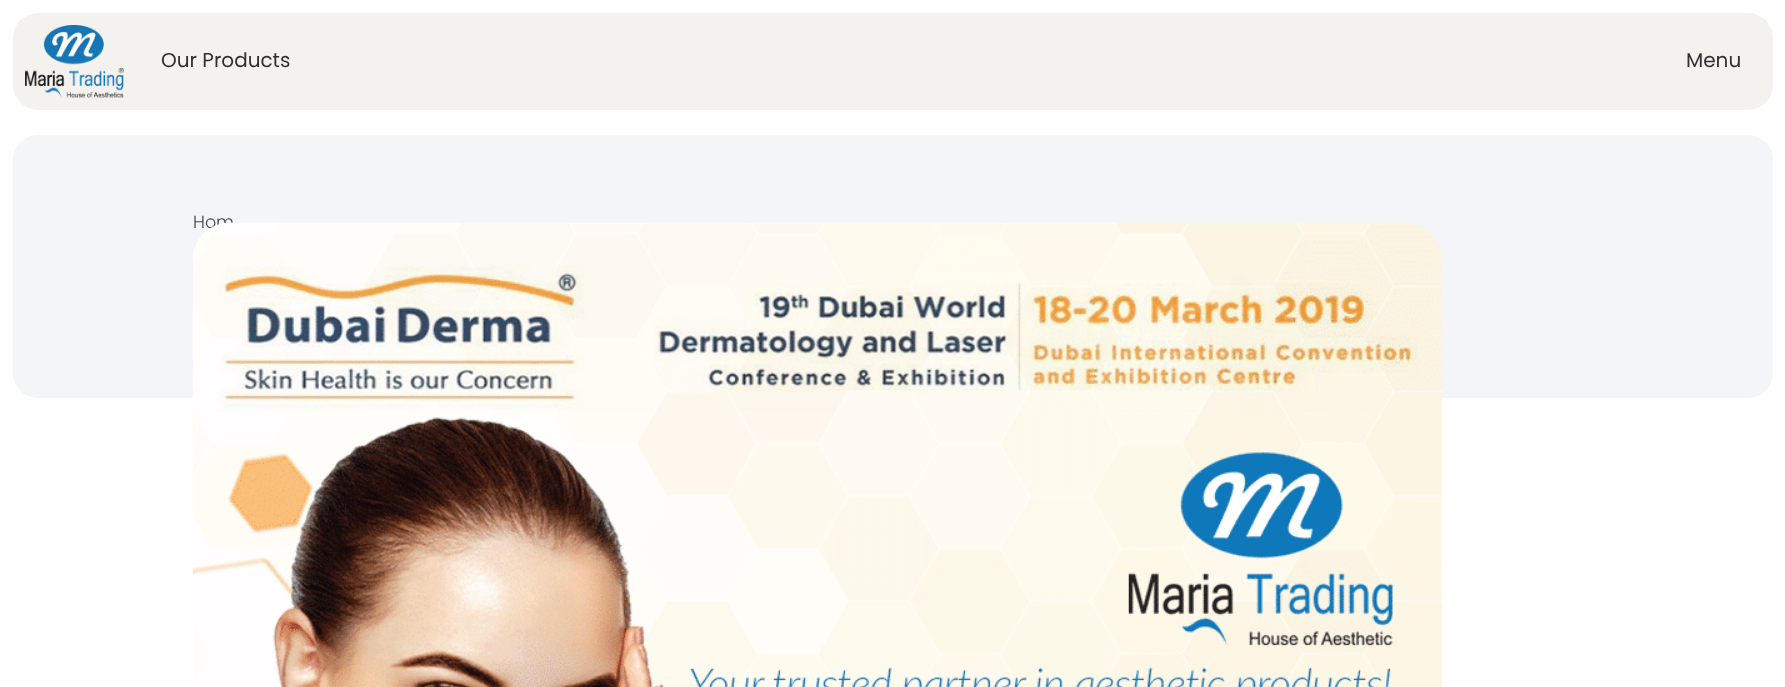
async function draw(canvas) {
  canvas.width = 1785
  canvas.height = 687
  const ctx = canvas.getContext('2d')
  ctx.miterLimit = 4
  ctx.fontKerning = 'normal'
  async function loadImage(src) {
    const img = new Image()
    img.src = src
    await img.decode()
    return img
  }

  ctx.fillStyle = '#fff'
  ctx.fillRect(0, 0, 1785, 687)
  ctx.fillStyle = '#f4f2ef'
  ctx.beginPath()
  ctx.roundRect(13, 13, 1760, 97, 25)
  ctx.fill()
  ctx.drawImage(await loadImage('image0.png'), 25, 25, 99, 73)
  ctx.font = '20px Poppins'
  ctx.fillStyle = '#313131'
  ctx.fillText('Our Products', 161, 67)
  ctx.fillText('Menu', 1686, 67)
  ctx.fillStyle = '#f4f5f8'
  ctx.beginPath()
  ctx.roundRect(13, 135, 1760, 263, 25)
  ctx.fill()
  ctx.font = '300 17.5px Poppins'
  ctx.fillStyle = '#444'
  ctx.fillText('Hom', 193, 228)
  ctx.drawImage(await loadImage('image1.png'), 192, 222, 1251, 465)
}

draw(document.querySelector('canvas'))
